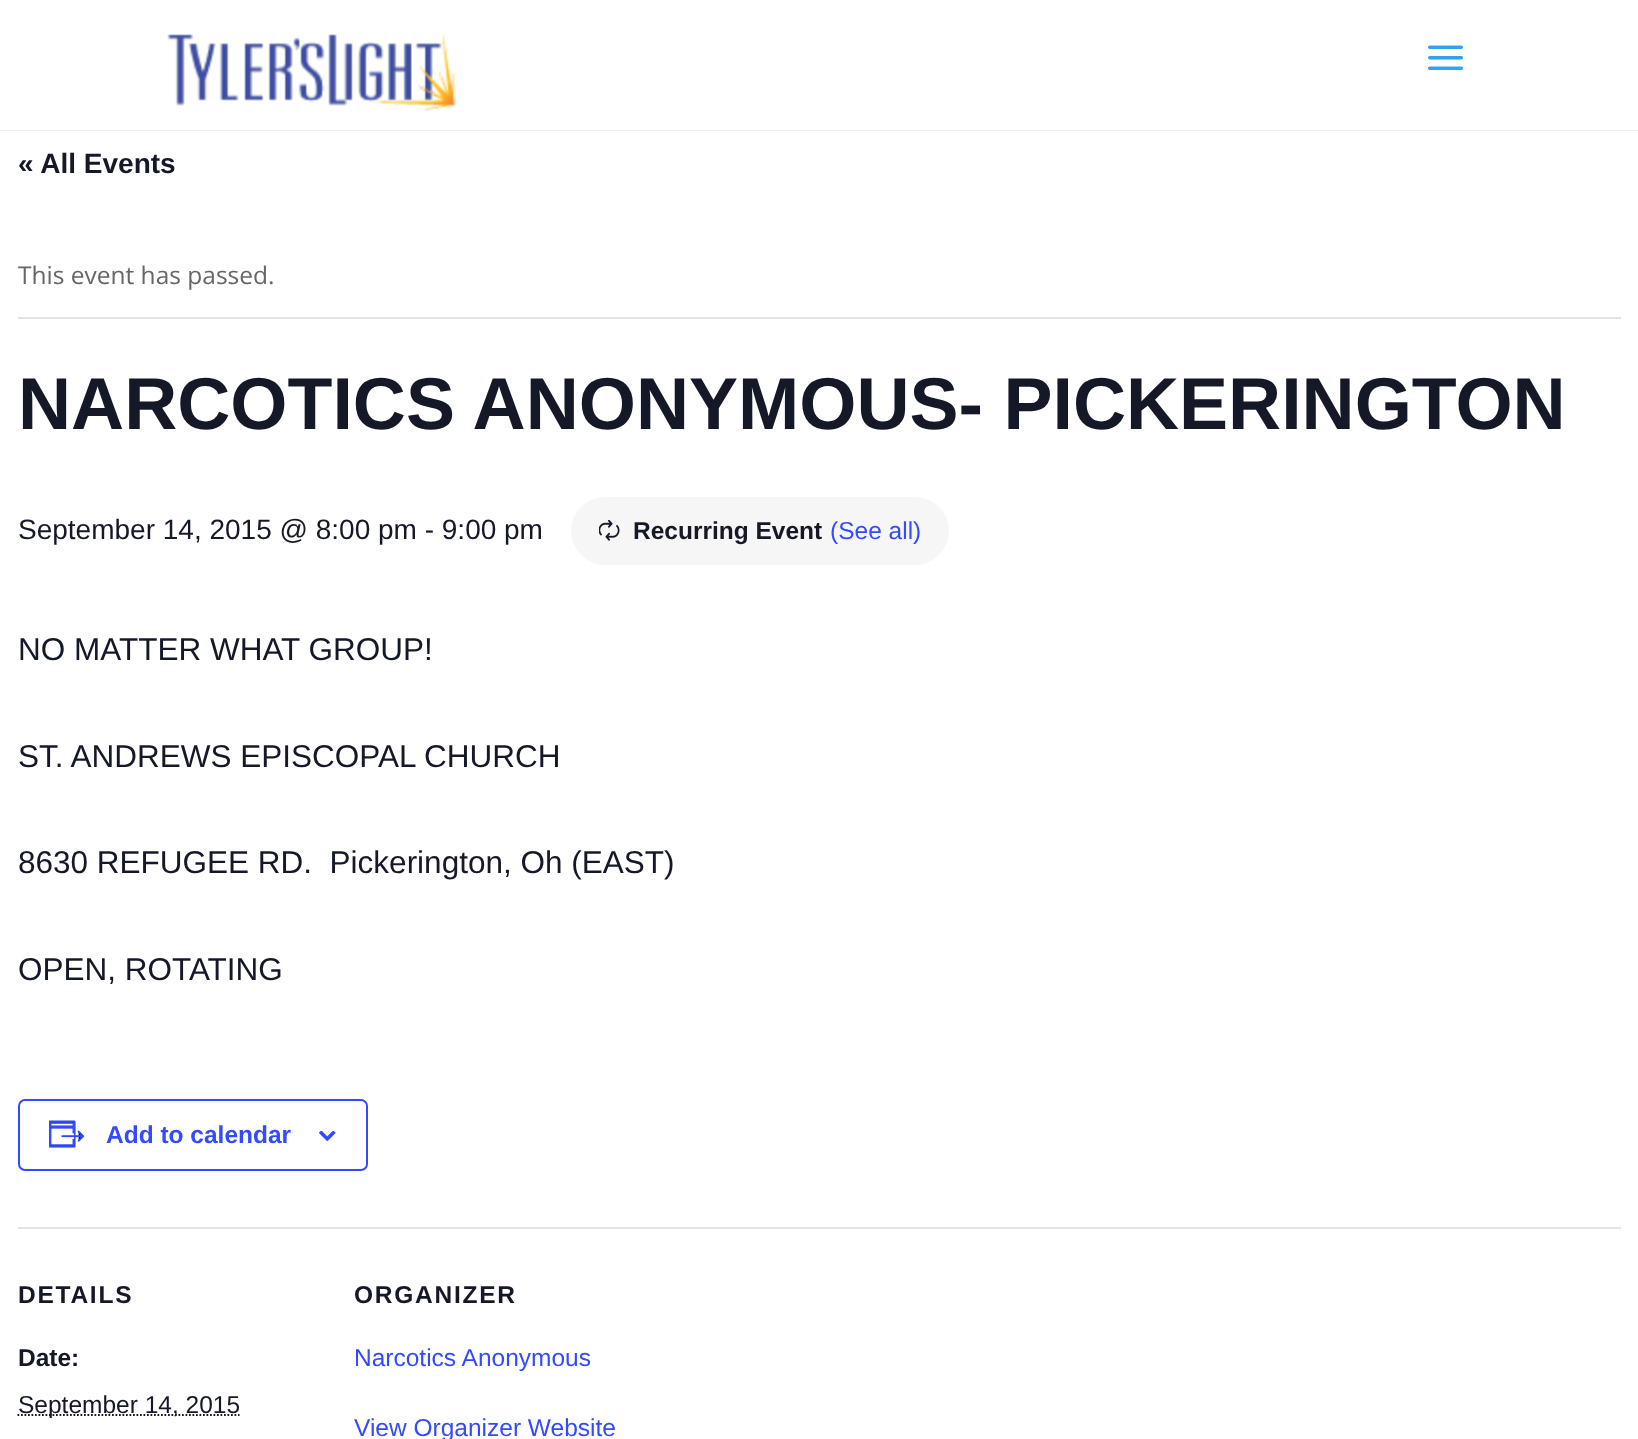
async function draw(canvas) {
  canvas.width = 1638
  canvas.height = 1439
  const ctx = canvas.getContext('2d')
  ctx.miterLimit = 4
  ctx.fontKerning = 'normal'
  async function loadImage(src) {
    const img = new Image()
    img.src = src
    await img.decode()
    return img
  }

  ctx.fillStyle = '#fff'
  ctx.fillRect(0, 0, 1638, 1439)
  ctx.fillStyle = '#f0f0f0'
  ctx.fillRect(0, 130, 1638, 1)
  ctx.drawImage(await loadImage('image0.png'), 167, 33, 289, 78)
  ctx.drawImage(await loadImage('image1.png'), 1428, 45, 35, 25)
  ctx.font = 'bold 28px Liberation Sans'
  ctx.fillStyle = '#141827'
  ctx.fillText('« All Events', 18, 173)
  ctx.fillStyle = '#e4e4e4'
  ctx.fillRect(18, 317, 1603, 2)
  ctx.font = '24.5px Open Sans'
  ctx.fillStyle = '#666'
  ctx.fillText('This event has passed.', 18, 284)
  ctx.font = 'bold 73.5px Liberation Sans'
  ctx.fillStyle = '#141827'
  ctx.fillText('NARCOTICS ANONYMOUS- PICKERINGTON', 18, 429)
  ctx.font = '28px Liberation Sans'
  ctx.fillText('September 14, 2015 @ 8:00 pm - 9:00 pm', 18, 539)
  ctx.fillStyle = '#f7f6f6'
  ctx.beginPath()
  ctx.roundRect(571, 497, 378, 68, 34)
  ctx.fill()
  ctx.drawImage(await loadImage('image2.png'), 599, 520, 21, 21)
  ctx.font = 'bold 24.5px Liberation Sans'
  ctx.fillStyle = '#141827'
  ctx.fillText('Recurring Event', 633, 539)
  ctx.font = '24.5px Liberation Sans'
  ctx.fillStyle = '#334aff'
  ctx.fillText('(See all)', 830, 539)
  ctx.font = '31.5px Liberation Sans'
  ctx.fillStyle = '#141827'
  ctx.fillText('NO MATTER WHAT GROUP!', 18, 660)
  ctx.fillText('ST. ANDREWS EPISCOPAL CHURCH', 18, 767)
  ctx.fillText('8630 REFUGEE RD.  Pickerington, Oh (EAST)', 18, 873)
  ctx.fillText('OPEN, ROTATING', 18, 980)
  ctx.beginPath()
  ctx.roundRect(19, 1100, 348, 70, 6)
  ctx.strokeStyle = '#334aff'
  ctx.lineWidth = 2
  ctx.stroke()
  ctx.drawImage(await loadImage('image3.png'), 49, 1120, 36, 28)
  ctx.font = 'bold 24.5px Liberation Sans'
  ctx.fillStyle = '#334aff'
  ctx.fillText('Add to calendar', 106, 1143)
  ctx.drawImage(await loadImage('image4.png'), 319, 1131, 17, 10)
  ctx.fillStyle = '#e4e4e4'
  ctx.fillRect(18, 1227, 1603, 2)
  ctx.letterSpacing = '1.75px'
  ctx.fillStyle = '#141827'
  ctx.fillText('DETAILS', 18, 1303)
  ctx.letterSpacing = '0px'
  ctx.fillText('Date:', 18, 1366)
  ctx.beginPath()
  ctx.moveTo(17.5, 1415)
  ctx.lineTo(239.5, 1415)
  ctx.strokeStyle = '#141827'
  ctx.lineWidth = 1.8
  ctx.setLineDash([1.75, 1.75])
  ctx.stroke()
  ctx.font = '24.5px Liberation Sans'
  ctx.fillText('September 14, 2015', 18, 1413)
  ctx.letterSpacing = '1.75px'
  ctx.font = 'bold 24.5px Liberation Sans'
  ctx.fillText('ORGANIZER', 354, 1303)
  ctx.letterSpacing = '0px'
  ctx.font = '24.5px Liberation Sans'
  ctx.fillStyle = '#334aff'
  ctx.fillText('Narcotics Anonymous', 354, 1366)
  ctx.fillText('View Organizer Website', 354, 1436)
}

draw(document.querySelector('canvas'))
